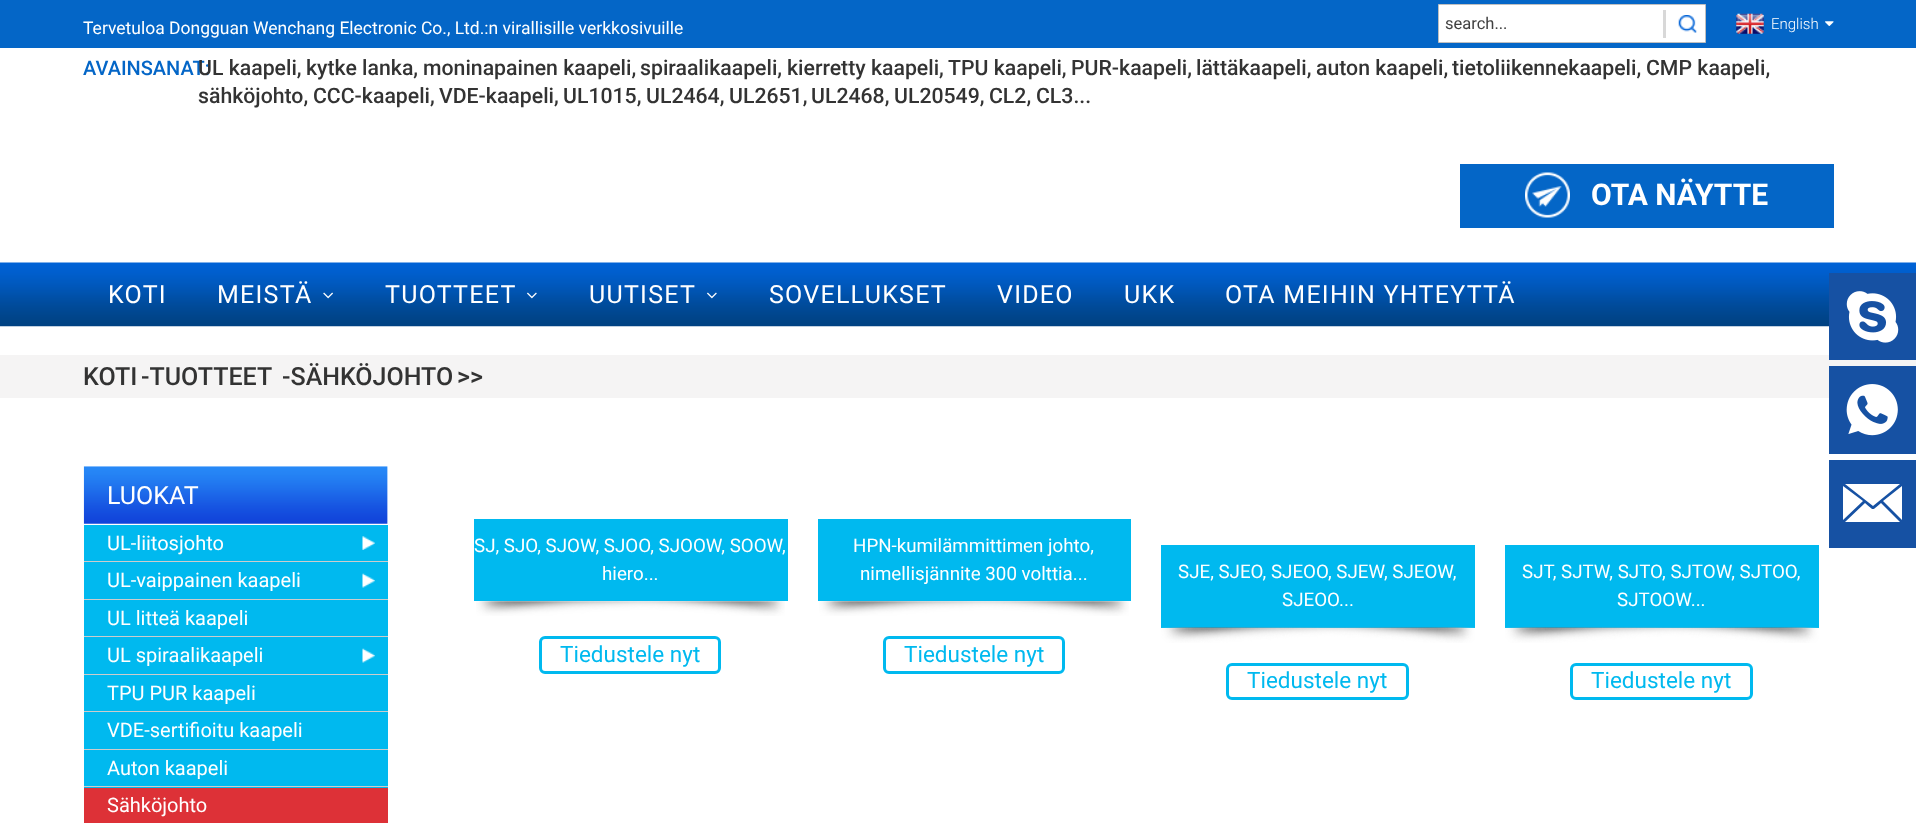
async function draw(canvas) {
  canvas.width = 1916
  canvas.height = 823
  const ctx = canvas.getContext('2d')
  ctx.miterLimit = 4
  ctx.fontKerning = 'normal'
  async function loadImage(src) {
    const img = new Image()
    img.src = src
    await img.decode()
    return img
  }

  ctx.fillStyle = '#fff'
  ctx.fillRect(0, 0, 1916, 823)
  ctx.fillStyle = '#0466c7'
  ctx.fillRect(0, 0, 1916, 48)
  ctx.font = '17.5px Roboto'
  ctx.fillStyle = '#fff'
  ctx.fillText('Tervetuloa Dongguan Wenchang Electronic Co., Ltd.:n virallisille verkkosivuille', 83, 34)
  ctx.beginPath()
  ctx.rect(1438.5, 4.5, 267, 38)
  ctx.fill()
  ctx.strokeStyle = '#bfbfbf'
  ctx.stroke()
  ctx.font = '16.5px Roboto'
  ctx.fillStyle = '#414141'
  ctx.fillText('search...', 1445, 29)
  ctx.drawImage(await loadImage('image0.png'), 1678, 15, 19, 18)
  ctx.fillStyle = '#d8d8d8'
  ctx.fillRect(1663, 10, 3, 28)
  ctx.drawImage(await loadImage('image1.png'), 1736, 13, 28, 21)
  ctx.font = '300 15px Roboto'
  ctx.fillStyle = '#fff'
  ctx.fillText('English', 1771, 29)
  ctx.drawImage(await loadImage('image2.png'), 1825, 21, 9, 5)
  ctx.font = '500 20px Roboto'
  ctx.fillStyle = '#0466c7'
  ctx.fillText('AVAINSANAT:', 83, 75)
  ctx.font = '500 21.25px Roboto'
  ctx.fillStyle = '#333'
  ctx.fillText('UL kaapeli,', 198, 75)
  ctx.fillText('kytke lanka,', 306, 75)
  ctx.fillText('moninapainen kaapeli,', 423, 75)
  ctx.fillText('spiraalikaapeli,', 640, 75)
  ctx.fillText('kierretty kaapeli,', 787, 75)
  ctx.fillText('TPU kaapeli,', 948, 75)
  ctx.fillText('PUR-kaapeli,', 1071, 75)
  ctx.fillText('lättäkaapeli,', 1196, 75)
  ctx.fillText('auton kaapeli,', 1316, 75)
  ctx.fillText('tietoliikennekaapeli,', 1452, 75)
  ctx.fillText('CMP kaapeli,', 1646, 75)
  ctx.fillText('sähköjohto,', 198, 103)
  ctx.fillText('CCC-kaapeli,', 313, 103)
  ctx.fillText('VDE-kaapeli,', 439, 103)
  ctx.fillText('UL1015,', 563, 103)
  ctx.fillText('UL2464,', 646, 103)
  ctx.fillText('UL2651,', 729, 103)
  ctx.fillText('UL2468,', 811, 103)
  ctx.fillText('UL20549,', 894, 103)
  ctx.fillText('CL2,', 989, 103)
  ctx.fillText('CL3...', 1036, 103)
  ctx.fillStyle = '#0466c7'
  ctx.fillRect(1460, 164, 374, 64)
  ctx.drawImage(await loadImage('image3.png'), 1525, 172, 45, 46)
  ctx.font = 'bold 30px Roboto'
  ctx.fillStyle = '#fff'
  ctx.fillText('OTA NÄYTTE', 1591, 205)
  ctx.drawImage(await loadImage('image4.png'), 0, 262, 1916, 65)
  ctx.letterSpacing = '1.25px'
  ctx.font = '25px Roboto'
  ctx.fillText('KOTI', 108, 303)
  ctx.fillText('MEISTÄ', 217, 303)
  ctx.drawImage(await loadImage('image5.png'), 323, 292, 10, 7)
  ctx.fillText('TUOTTEET', 385, 303)
  ctx.drawImage(await loadImage('image6.png'), 527, 292, 10, 7)
  ctx.fillText('UUTISET', 589, 303)
  ctx.drawImage(await loadImage('image6.png'), 707, 292, 10, 7)
  ctx.fillText('SOVELLUKSET', 769, 303)
  ctx.fillText('VIDEO', 997, 303)
  ctx.fillText('UKK', 1124, 303)
  ctx.fillText('OTA MEIHIN YHTEYTTÄ', 1225, 303)
  ctx.fillStyle = '#f5f4f4'
  ctx.fillRect(0, 355, 1916, 43)
  ctx.letterSpacing = '0px'
  ctx.font = '500 25px Roboto'
  ctx.fillStyle = '#333'
  ctx.fillText('KOTI', 83, 385)
  ctx.fillText('-TUOTTEET', 141, 385)
  ctx.fillText('-SÄHKÖJOHTO', 282, 385)
  ctx.fillText('>>', 457, 385)
  ctx.drawImage(await loadImage('image7.png'), 83, 466, 305, 58)
  ctx.font = '25px Roboto'
  ctx.fillStyle = '#fff'
  ctx.fillText('LUOKAT', 107, 504)
  ctx.fillStyle = '#00b9ef'
  ctx.fillRect(84, 525, 304, 74)
  ctx.fillStyle = '#ccc'
  ctx.fillRect(84, 561, 304, 1)
  ctx.font = '20px Roboto'
  ctx.fillStyle = '#fff'
  ctx.fillText('UL-liitosjohto', 107, 550)
  ctx.drawImage(await loadImage('image8.png'), 362, 536, 13, 14)
  ctx.fillStyle = '#ccc'
  ctx.fillRect(84, 599, 304, 1)
  ctx.fillStyle = '#fff'
  ctx.fillText('UL-vaippainen kaapeli', 107, 587)
  ctx.drawImage(await loadImage('image9.png'), 362, 573, 13, 15)
  ctx.fillStyle = '#00b9ef'
  ctx.fillRect(84, 600, 304, 74)
  ctx.fillStyle = '#ccc'
  ctx.fillRect(84, 636, 304, 1)
  ctx.fillStyle = '#fff'
  ctx.fillText('UL litteä kaapeli', 107, 625)
  ctx.fillStyle = '#ccc'
  ctx.fillRect(84, 674, 304, 1)
  ctx.fillStyle = '#fff'
  ctx.fillText('UL spiraalikaapeli', 107, 662)
  ctx.drawImage(await loadImage('image10.png'), 362, 648, 13, 15)
  ctx.fillStyle = '#00b9ef'
  ctx.fillRect(84, 675, 304, 74)
  ctx.fillStyle = '#ccc'
  ctx.fillRect(84, 711, 304, 1)
  ctx.fillStyle = '#fff'
  ctx.fillText('TPU PUR kaapeli', 107, 700)
  ctx.fillStyle = '#ccc'
  ctx.fillRect(84, 749, 304, 1)
  ctx.fillStyle = '#fff'
  ctx.fillText('VDE-sertifioitu kaapeli', 107, 737)
  ctx.fillStyle = '#00b9ef'
  ctx.fillRect(84, 750, 304, 38)
  ctx.fillStyle = '#ccc'
  ctx.fillRect(84, 786, 304, 1)
  ctx.fillStyle = '#fff'
  ctx.fillText('Auton kaapeli', 107, 775)
  ctx.fillStyle = '#dd3137'
  ctx.fillRect(84, 788, 304, 35)
  ctx.fillStyle = '#fff'
  ctx.fillText('Sähköjohto', 107, 812)
  ctx.fillStyle = '#00b9ef'
  ctx.fillRect(474, 519, 314, 82)
  ctx.font = '18.75px Roboto'
  ctx.fillStyle = '#fff'
  ctx.fillText('SJ, SJO, SJOW, SJOO, SJOOW, SOOW,', 474, 552)
  ctx.fillText('hiero...', 602, 580)
  ctx.drawImage(await loadImage('image11.png'), 476, 601, 309, 15)
  ctx.beginPath()
  ctx.roundRect(540.5, 637.5, 179, 35, 4.5)
  ctx.strokeStyle = '#00b9ef'
  ctx.lineWidth = 3
  ctx.stroke()
  ctx.font = '22.5px Roboto'
  ctx.fillStyle = '#00b9ef'
  ctx.fillText('Tiedustele nyt', 560, 662)
  ctx.fillRect(818, 519, 313, 82)
  ctx.font = '18.75px Roboto'
  ctx.fillStyle = '#fff'
  ctx.fillText('HPN-kumilämmittimen johto,', 853, 552)
  ctx.fillText('nimellisjännite 300 volttia...', 860, 580)
  ctx.drawImage(await loadImage('image12.png'), 819, 601, 310, 15)
  ctx.beginPath()
  ctx.roundRect(884.5, 637.5, 179, 35, 4.5)
  ctx.stroke()
  ctx.font = '22.5px Roboto'
  ctx.fillStyle = '#00b9ef'
  ctx.fillText('Tiedustele nyt', 904, 662)
  ctx.fillRect(1161, 545, 314, 83)
  ctx.font = '18.75px Roboto'
  ctx.fillStyle = '#fff'
  ctx.fillText('SJE, SJEO, SJEOO, SJEW, SJEOW,', 1178, 578)
  ctx.fillText('SJEOO...', 1282, 606)
  ctx.drawImage(await loadImage('image13.png'), 1161, 627, 314, 16)
  ctx.beginPath()
  ctx.roundRect(1227.5, 664.5, 180, 34, 4.5)
  ctx.stroke()
  ctx.font = '22.5px Roboto'
  ctx.fillStyle = '#00b9ef'
  ctx.fillText('Tiedustele nyt', 1247, 688)
  ctx.fillRect(1505, 545, 314, 83)
  ctx.font = '18.75px Roboto'
  ctx.fillStyle = '#fff'
  ctx.fillText('SJT, SJTW, SJTO, SJTOW, SJTOO,', 1522, 578)
  ctx.fillText('SJTOOW...', 1617, 606)
  ctx.drawImage(await loadImage('image14.png'), 1505, 627, 314, 16)
  ctx.beginPath()
  ctx.roundRect(1571.5, 664.5, 180, 34, 4.5)
  ctx.stroke()
  ctx.font = '22.5px Roboto'
  ctx.fillStyle = '#00b9ef'
  ctx.fillText('Tiedustele nyt', 1591, 688)
  ctx.fillStyle = '#1651a3'
  ctx.fillRect(1829, 273, 87, 87)
  ctx.drawImage(await loadImage('image15.png'), 1846, 291, 53, 52)
  ctx.fillRect(1829, 366, 87, 88)
  ctx.drawImage(await loadImage('image16.png'), 1846, 384, 52, 52)
  ctx.fillRect(1829, 460, 87, 88)
  ctx.fillStyle = '#fff'
  ctx.beginPath()
  ctx.moveTo(1873, 506)
  ctx.lineTo(1845, 484)
  ctx.lineTo(1900, 484)
  ctx.closePath()
  ctx.moveTo(1902, 520)
  ctx.lineTo(1883, 501)
  ctx.lineTo(1902, 486)
  ctx.closePath()
  ctx.moveTo(1843, 520)
  ctx.lineTo(1843, 486)
  ctx.lineTo(1863, 501)
  ctx.closePath()
  ctx.moveTo(1900, 522)
  ctx.lineTo(1845, 522)
  ctx.lineTo(1865, 503)
  ctx.bezierCurveTo(1875, 511, 1871, 511, 1881, 503)
  ctx.closePath()
  ctx.fill()
}

draw(document.querySelector('canvas'))
